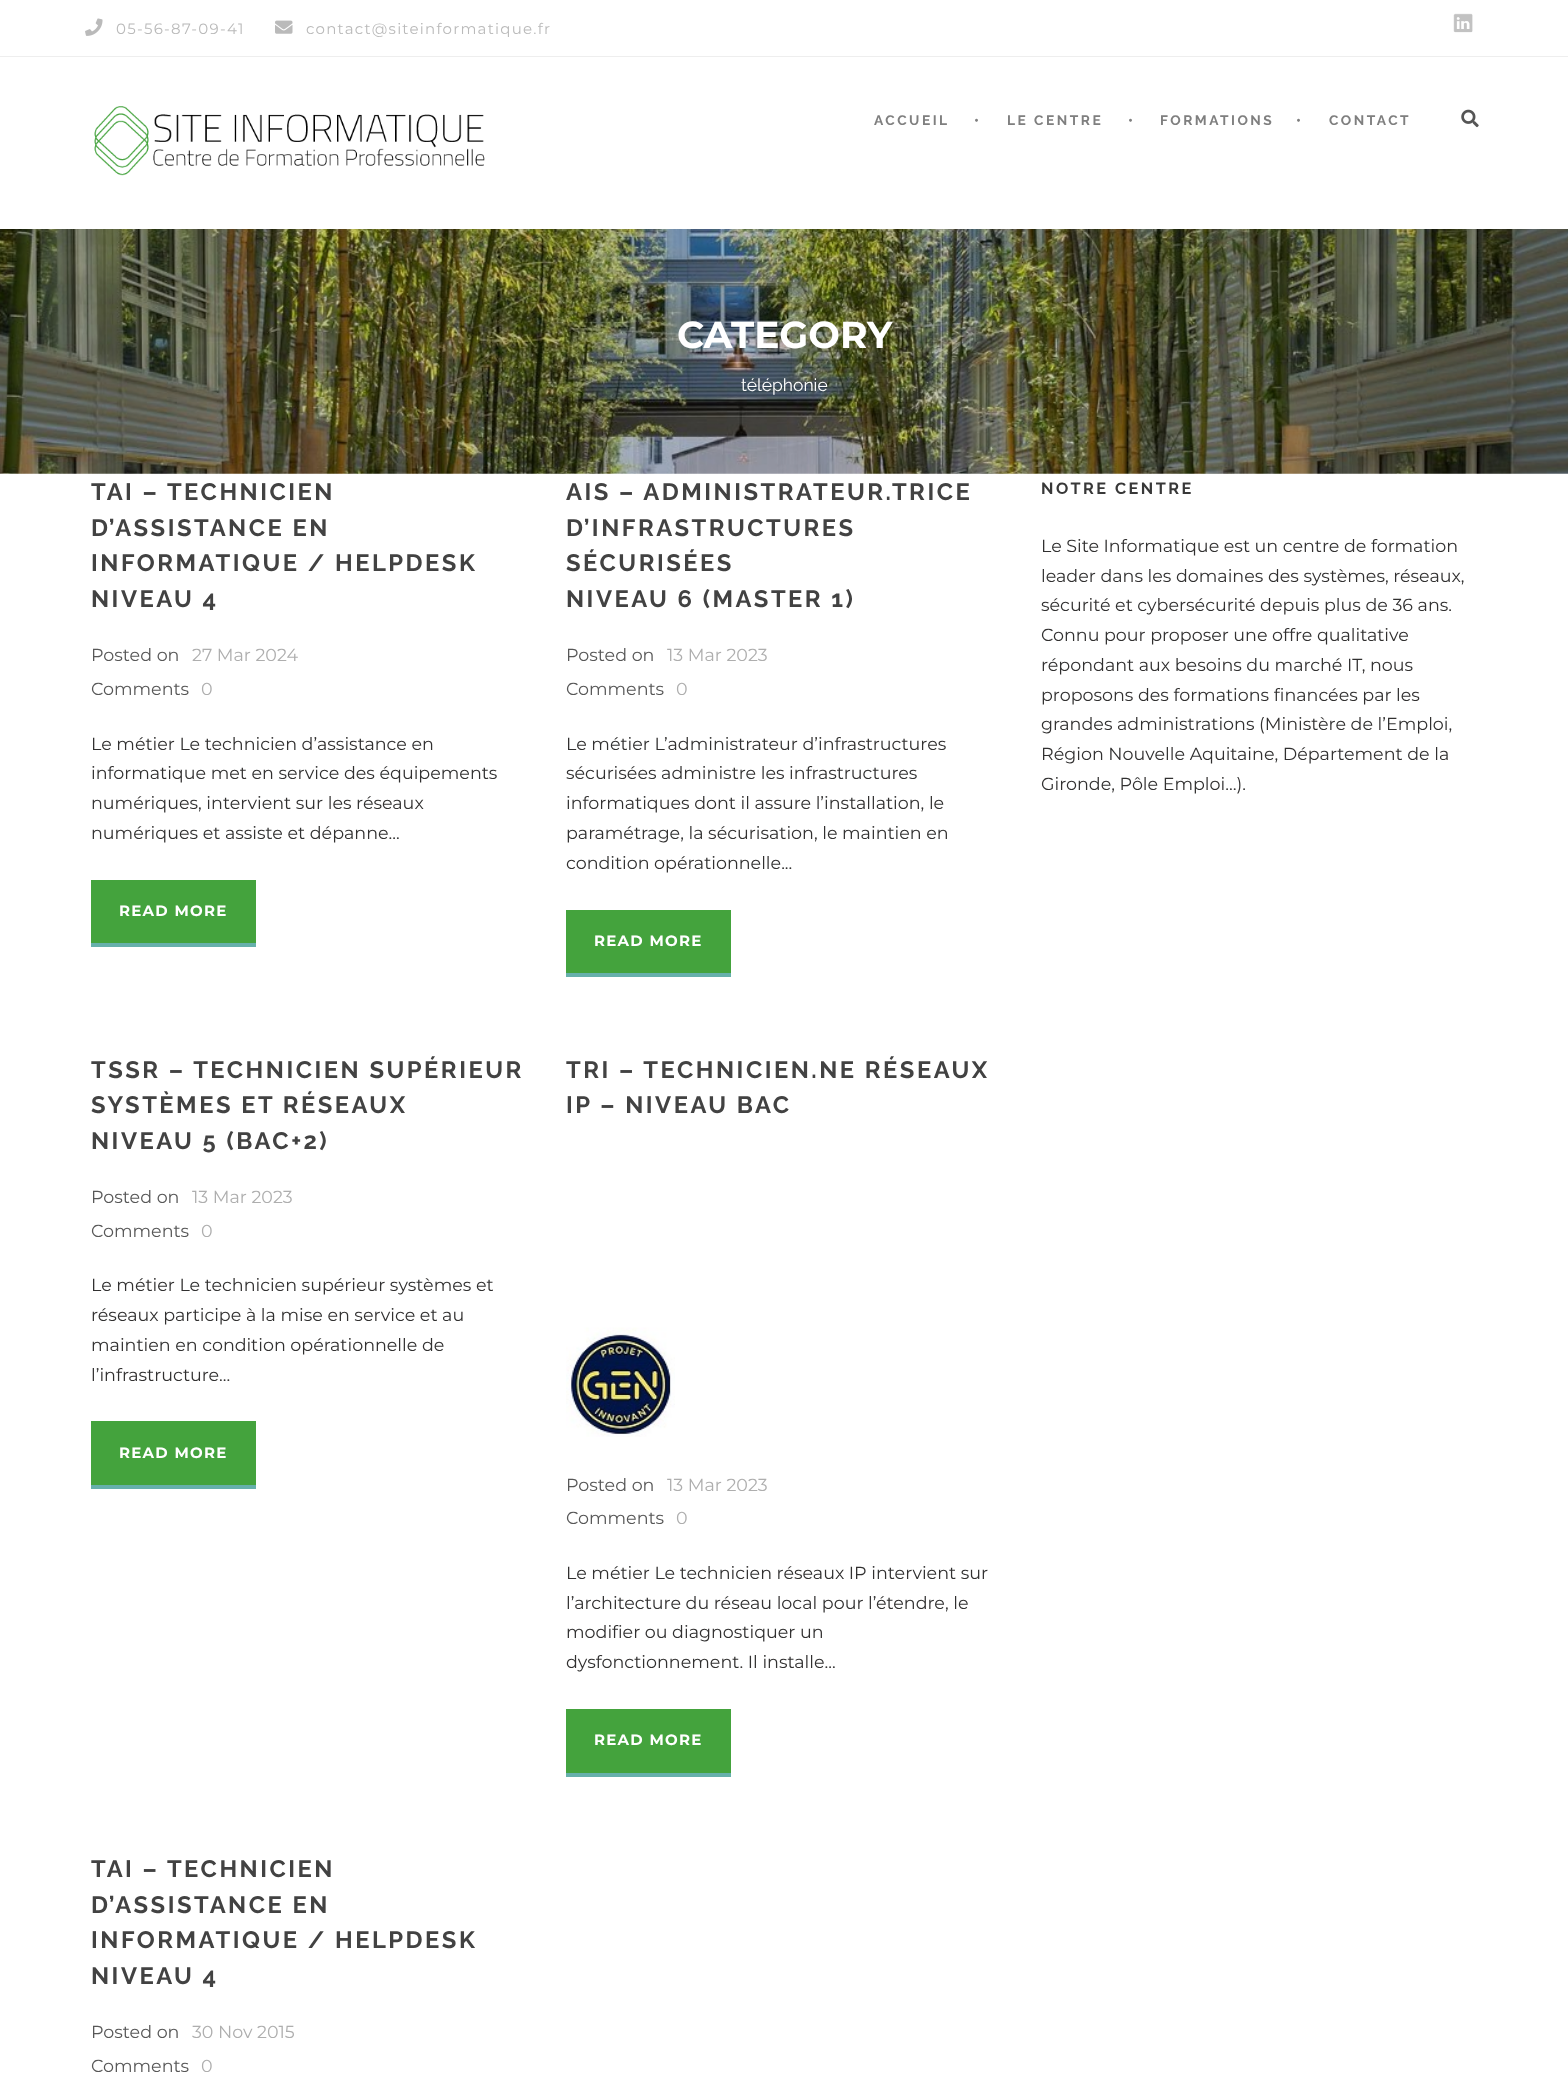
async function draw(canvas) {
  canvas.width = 1568
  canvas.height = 2075
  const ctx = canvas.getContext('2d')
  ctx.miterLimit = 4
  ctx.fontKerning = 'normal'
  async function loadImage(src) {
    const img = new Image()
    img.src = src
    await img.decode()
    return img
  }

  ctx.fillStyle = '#fff'
  ctx.fillRect(0, 0, 1568, 2075)
  ctx.fillStyle = '#eee'
  ctx.fillRect(0, 56, 1568, 1)
  ctx.drawImage(await loadImage('image0.png'), 85, 18, 18, 18)
  ctx.letterSpacing = '1.25px'
  ctx.font = '15px Montserrat'
  ctx.fillStyle = '#bababa'
  ctx.fillText('05-56-87-09-41', 116, 34)
  ctx.drawImage(await loadImage('image1.png'), 275, 20, 18, 14)
  ctx.fillText('contact@siteinformatique.fr', 306, 34)
  ctx.drawImage(await loadImage('image2.png'), 1453, 13, 20, 20)
  ctx.drawImage(await loadImage('image3.png'), 94, 106, 391, 70)
  ctx.letterSpacing = '2.5px'
  ctx.font = 'bold 13.75px Raleway'
  ctx.fillStyle = '#7f7f7f'
  ctx.fillText('ACCUEIL', 874, 125)
  ctx.fillText('•', 974, 125)
  ctx.fillText('LE CENTRE', 1007, 125)
  ctx.fillText('•', 1128, 125)
  ctx.fillText('FORMATIONS', 1160, 125)
  ctx.fillText('•', 1296, 125)
  ctx.fillText('CONTACT', 1329, 125)
  ctx.drawImage(await loadImage('image4.png'), 1461, 109, 18, 19)
  ctx.drawImage(await loadImage('image5.png'), 0, 229, 1568, 245)
  ctx.letterSpacing = '0px'
  ctx.font = 'bold 37.5px Montserrat'
  ctx.fillStyle = '#fff'
  ctx.fillText('CATEGORY', 677, 348)
  ctx.font = '17.5px Raleway'
  ctx.fillText('téléphonie', 741, 391)
  ctx.letterSpacing = '2.5px'
  ctx.font = 'bold 23.75px Raleway'
  ctx.fillStyle = '#424242'
  ctx.fillText('TAI – TECHNICIEN', 91, 500)
  ctx.fillText('D’ASSISTANCE EN', 91, 536)
  ctx.fillText('INFORMATIQUE / HELPDESK', 91, 571)
  ctx.fillText('NIVEAU 4', 91, 607)
  ctx.letterSpacing = '0px'
  ctx.font = '17.5px Montserrat'
  ctx.fillStyle = '#575757'
  ctx.fillText('Posted on', 91, 661)
  ctx.fillStyle = '#aeaeae'
  ctx.fillText('27 Mar 2024', 192, 661)
  ctx.fillStyle = '#575757'
  ctx.fillText('Comments', 91, 695)
  ctx.fillStyle = '#aeaeae'
  ctx.fillText('0', 201, 695)
  ctx.fillStyle = '#313030'
  ctx.fillText('Le métier Le technicien d’assistance en', 91, 750)
  ctx.fillText('informatique met en service des équipements', 91, 779)
  ctx.fillText('numériques, intervient sur les réseaux', 91, 809)
  ctx.fillText('numériques et assiste et dépanne...', 91, 839)
  ctx.fillStyle = '#44a33d'
  ctx.fillRect(91, 880, 165, 63)
  ctx.fillStyle = '#66b0ab'
  ctx.fillRect(91, 943, 165, 4)
  ctx.letterSpacing = '1.25px'
  ctx.font = 'bold 15px Montserrat'
  ctx.fillStyle = '#fff'
  ctx.fillText('READ MORE', 119, 916)
  ctx.letterSpacing = '2.5px'
  ctx.font = 'bold 23.75px Raleway'
  ctx.fillStyle = '#424242'
  ctx.fillText('AIS – ADMINISTRATEUR.TRICE', 566, 500)
  ctx.fillText('D’INFRASTRUCTURES', 566, 536)
  ctx.fillText('SÉCURISÉES', 566, 571)
  ctx.fillText('NIVEAU 6 (MASTER 1)', 566, 607)
  ctx.letterSpacing = '0px'
  ctx.font = '17.5px Montserrat'
  ctx.fillStyle = '#575757'
  ctx.fillText('Posted on', 566, 661)
  ctx.fillStyle = '#aeaeae'
  ctx.fillText('13 Mar 2023', 667, 661)
  ctx.fillStyle = '#575757'
  ctx.fillText('Comments', 566, 695)
  ctx.fillStyle = '#aeaeae'
  ctx.fillText('0', 676, 695)
  ctx.fillStyle = '#313030'
  ctx.fillText('Le métier L’administrateur d’infrastructures', 566, 750)
  ctx.fillText('sécurisées administre les infrastructures', 566, 779)
  ctx.fillText('informatiques dont il assure l’installation, le', 566, 809)
  ctx.fillText('paramétrage, la sécurisation, le maintien en', 566, 839)
  ctx.fillText('condition opérationnelle...', 566, 869)
  ctx.fillStyle = '#44a33d'
  ctx.fillRect(566, 910, 165, 63)
  ctx.fillStyle = '#66b0ab'
  ctx.fillRect(566, 973, 165, 4)
  ctx.letterSpacing = '1.25px'
  ctx.font = 'bold 15px Montserrat'
  ctx.fillStyle = '#fff'
  ctx.fillText('READ MORE', 594, 946)
  ctx.letterSpacing = '2.5px'
  ctx.font = 'bold 23.75px Raleway'
  ctx.fillStyle = '#424242'
  ctx.fillText('TSSR – TECHNICIEN SUPÉRIEUR', 91, 1078)
  ctx.fillText('SYSTÈMES ET RÉSEAUX', 91, 1113)
  ctx.fillText('NIVEAU 5 (BAC+2)', 91, 1149)
  ctx.letterSpacing = '0px'
  ctx.font = '17.5px Montserrat'
  ctx.fillStyle = '#575757'
  ctx.fillText('Posted on', 91, 1203)
  ctx.fillStyle = '#aeaeae'
  ctx.fillText('13 Mar 2023', 192, 1203)
  ctx.fillStyle = '#575757'
  ctx.fillText('Comments', 91, 1237)
  ctx.fillStyle = '#aeaeae'
  ctx.fillText('0', 201, 1237)
  ctx.fillStyle = '#313030'
  ctx.fillText('Le métier Le technicien supérieur systèmes et', 91, 1291)
  ctx.fillText('réseaux participe à la mise en service et au', 91, 1321)
  ctx.fillText('maintien en condition opérationnelle de', 91, 1351)
  ctx.fillText('l’infrastructure...', 91, 1381)
  ctx.fillStyle = '#44a33d'
  ctx.fillRect(91, 1421, 165, 64)
  ctx.fillStyle = '#66b0ab'
  ctx.fillRect(91, 1485, 165, 4)
  ctx.letterSpacing = '1.25px'
  ctx.font = 'bold 15px Montserrat'
  ctx.fillStyle = '#fff'
  ctx.fillText('READ MORE', 119, 1458)
  ctx.letterSpacing = '2.5px'
  ctx.font = 'bold 23.75px Raleway'
  ctx.fillStyle = '#424242'
  ctx.fillText('TRI – TECHNICIEN.NE RÉSEAUX', 566, 1078)
  ctx.fillText('IP – NIVEAU BAC', 566, 1113)
  ctx.drawImage(await loadImage('image6.png'), 566, 1327, 109, 110)
  ctx.letterSpacing = '0px'
  ctx.font = '17.5px Montserrat'
  ctx.fillStyle = '#575757'
  ctx.fillText('Posted on', 566, 1491)
  ctx.fillStyle = '#aeaeae'
  ctx.fillText('13 Mar 2023', 667, 1491)
  ctx.fillStyle = '#575757'
  ctx.fillText('Comments', 566, 1524)
  ctx.fillStyle = '#aeaeae'
  ctx.fillText('0', 676, 1524)
  ctx.fillStyle = '#313030'
  ctx.fillText('Le métier Le technicien réseaux IP intervient sur', 566, 1579)
  ctx.fillText('l’architecture du réseau local pour l’étendre, le', 566, 1609)
  ctx.fillText('modifier ou diagnostiquer un', 566, 1638)
  ctx.fillText('dysfonctionnement. Il installe...', 566, 1668)
  ctx.fillStyle = '#44a33d'
  ctx.fillRect(566, 1709, 165, 64)
  ctx.fillStyle = '#66b0ab'
  ctx.fillRect(566, 1773, 165, 4)
  ctx.letterSpacing = '1.25px'
  ctx.font = 'bold 15px Montserrat'
  ctx.fillStyle = '#fff'
  ctx.fillText('READ MORE', 594, 1745)
  ctx.letterSpacing = '2.5px'
  ctx.font = 'bold 23.75px Raleway'
  ctx.fillStyle = '#424242'
  ctx.fillText('TAI – TECHNICIEN', 91, 1877)
  ctx.fillText('D’ASSISTANCE EN', 91, 1913)
  ctx.fillText('INFORMATIQUE / HELPDESK', 91, 1948)
  ctx.fillText('NIVEAU 4', 91, 1984)
  ctx.letterSpacing = '0px'
  ctx.font = '17.5px Montserrat'
  ctx.fillStyle = '#575757'
  ctx.fillText('Posted on', 91, 2038)
  ctx.fillStyle = '#aeaeae'
  ctx.fillText('30 Nov 2015', 192, 2038)
  ctx.fillStyle = '#575757'
  ctx.fillText('Comments', 91, 2072)
  ctx.fillStyle = '#aeaeae'
  ctx.fillText('0', 201, 2072)
  ctx.letterSpacing = '2.5px'
  ctx.font = 'bold 16.25px Raleway'
  ctx.fillStyle = '#383838'
  ctx.fillText('NOTRE CENTRE', 1041, 494)
  ctx.letterSpacing = '0px'
  ctx.font = '17.5px Montserrat'
  ctx.fillStyle = '#313030'
  ctx.fillText('Le Site Informatique est un centre de formation', 1041, 552)
  ctx.fillText('leader dans les domaines des systèmes, réseaux,', 1041, 582)
  ctx.fillText('sécurité et cybersécurité depuis plus de 36 ans.', 1041, 611)
  ctx.fillText('Connu pour proposer une offre qualitative', 1041, 641)
  ctx.fillText('répondant aux besoins du marché IT, nous', 1041, 671)
  ctx.fillText('proposons des formations financées par les', 1041, 701)
  ctx.fillText('grandes administrations (Ministère de l’Emploi,', 1041, 730)
  ctx.fillText('Région Nouvelle Aquitaine, Département de la', 1041, 760)
  ctx.fillText('Gironde, Pôle Emploi…).', 1041, 790)
}

draw(document.querySelector('canvas'))
